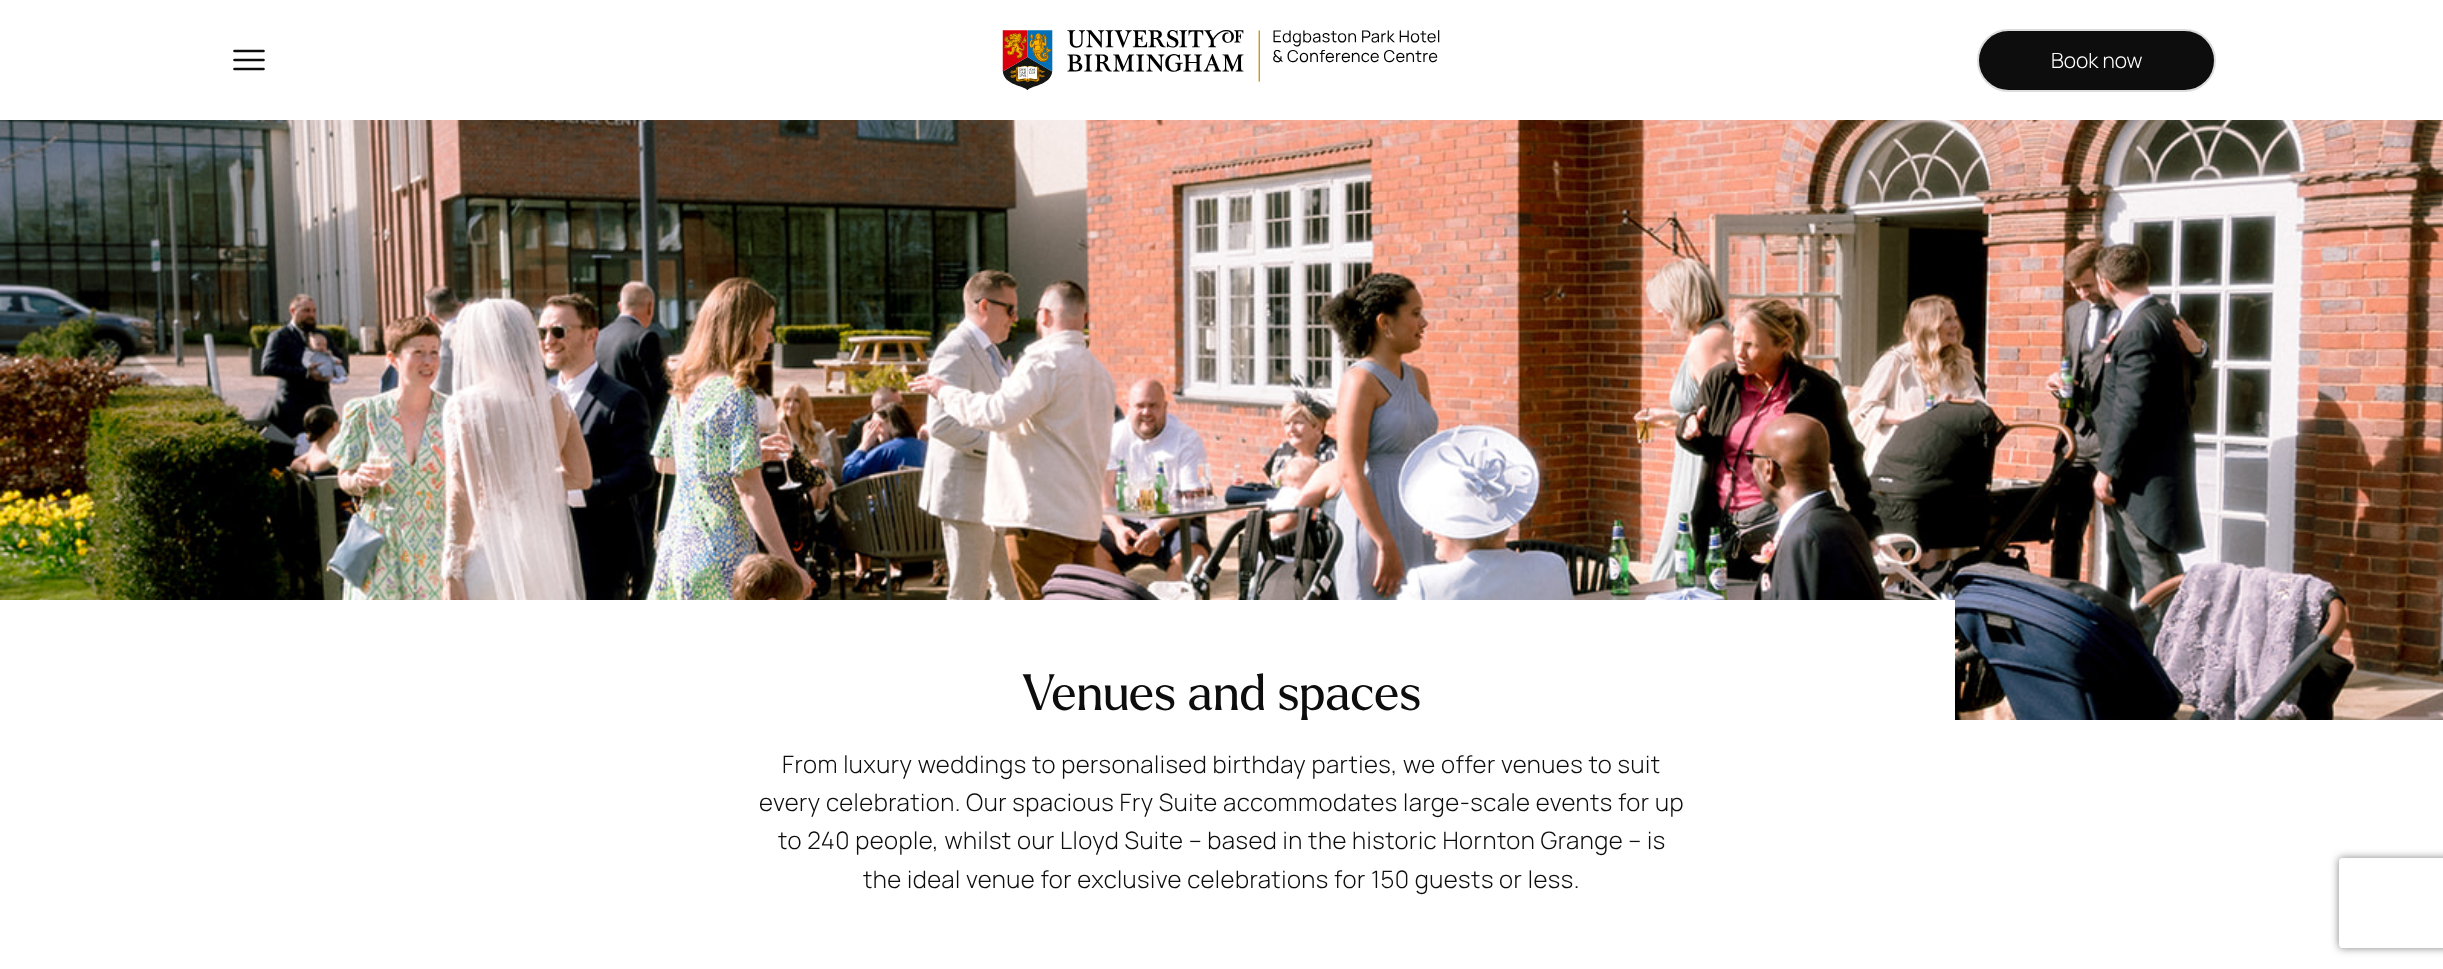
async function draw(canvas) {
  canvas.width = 2443
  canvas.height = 969
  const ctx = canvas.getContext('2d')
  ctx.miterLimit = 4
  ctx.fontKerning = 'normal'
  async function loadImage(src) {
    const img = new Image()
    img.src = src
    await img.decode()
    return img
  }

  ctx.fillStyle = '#fff'
  ctx.fillRect(0, 0, 2443, 969)
  ctx.beginPath()
  ctx.moveTo(234.5, 51)
  ctx.lineTo(263.5, 51)
  ctx.moveTo(234.5, 60)
  ctx.lineTo(263.5, 60)
  ctx.moveTo(234.5, 69)
  ctx.lineTo(263.5, 69)
  ctx.strokeStyle = '#0d0d0d'
  ctx.lineWidth = 2.6
  ctx.lineCap = 'round'
  ctx.lineJoin = 'round'
  ctx.stroke()
  ctx.drawImage(await loadImage('image0.png'), 1002, 30, 438, 60)
  ctx.fillStyle = '#0d0d0d'
  ctx.beginPath()
  ctx.roundRect(1978, 30, 237, 61, 30.5)
  ctx.fill()
  ctx.strokeStyle = '#dcdcdc'
  ctx.lineWidth = 2
  ctx.lineJoin = 'miter'
  ctx.stroke()
  ctx.font = '300 21px Manrope'
  ctx.fillStyle = '#fff'
  ctx.fillText('Book now', 2051, 68)
  ctx.drawImage(await loadImage('image1.png'), 0, 120, 2443, 600)
  ctx.fillRect(0, 600, 1955, 120)
  ctx.font = '49.5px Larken'
  ctx.fillStyle = '#0d0d0d'
  ctx.fillText('Venues and spaces', 1022, 710)
  ctx.letterSpacing = '0.48px'
  ctx.font = '300 24px Manrope'
  ctx.fillText('From luxury weddings to personalised birthday parties, we offer venues to suit', 782, 773)
  ctx.fillText('every celebration. Our spacious Fry Suite accommodates large-scale events for up', 759, 811)
  ctx.fillText('to 240 people, whilst our Lloyd Suite – based in the historic Hornton Grange – is', 778, 849)
  ctx.fillText('the ideal venue for exclusive celebrations for 150 guests or less.', 863, 888)
  ctx.save()
  ctx.beginPath()
  ctx.moveTo(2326, 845)
  ctx.lineTo(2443, 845)
  ctx.lineTo(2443, 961)
  ctx.lineTo(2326, 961)
  ctx.closePath()
  ctx.moveTo(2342, 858)
  ctx.lineTo(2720, 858)
  ctx.bezierCurveTo(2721.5, 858, 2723, 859.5, 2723, 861)
  ctx.lineTo(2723, 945)
  ctx.bezierCurveTo(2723, 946.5, 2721.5, 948, 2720, 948)
  ctx.lineTo(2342, 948)
  ctx.bezierCurveTo(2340.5, 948, 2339, 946.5, 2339, 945)
  ctx.lineTo(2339, 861)
  ctx.bezierCurveTo(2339, 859.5, 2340.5, 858, 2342, 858)
  ctx.closePath()
  ctx.clip('evenodd')
  ctx.fillStyle = '#808080'
  ctx.filter = 'blur(4px)'
  ctx.beginPath()
  ctx.roundRect(2339, 858, 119, 90, 3)
  ctx.fill()
  ctx.filter = 'none'
  ctx.restore()
}

draw(document.querySelector('canvas'))
